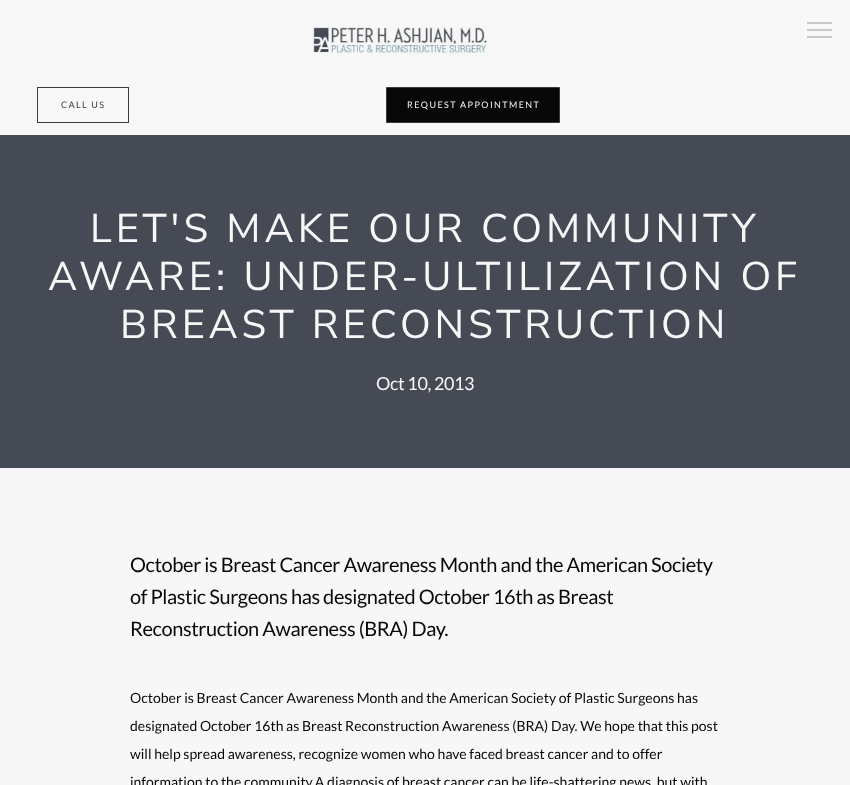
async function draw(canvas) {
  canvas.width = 850
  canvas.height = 785
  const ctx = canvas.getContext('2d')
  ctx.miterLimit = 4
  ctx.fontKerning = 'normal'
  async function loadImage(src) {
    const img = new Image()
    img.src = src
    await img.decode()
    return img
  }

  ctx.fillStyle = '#464a55'
  ctx.fillRect(0, 0, 850, 785)
  ctx.fillStyle = '#f8f8f8'
  ctx.fillRect(0, 0, 850, 135)
  ctx.drawImage(await loadImage('image0.png'), 313, 27, 175, 29)
  ctx.fillStyle = '#cacaca'
  ctx.fillRect(807, 22, 25, 2)
  ctx.fillRect(807, 36, 25, 2)
  ctx.fillRect(807, 29, 25, 2)
  ctx.strokeStyle = '#383b44'
  ctx.strokeRect(37.5, 87.5, 91, 35)
  ctx.letterSpacing = '1.4px'
  ctx.font = '9px Lato'
  ctx.fillStyle = '#383b44'
  ctx.fillText('CALL US', 61, 108)
  ctx.fillStyle = '#080808'
  ctx.beginPath()
  ctx.rect(386.5, 87.5, 173, 35)
  ctx.fill()
  ctx.stroke()
  ctx.fillStyle = '#f7f7f7'
  ctx.fillText('REQUEST APPOINTMENT', 407, 108)
  ctx.letterSpacing = '4px'
  ctx.font = '200 40px Nunito Sans'
  ctx.fillText('LET\'S MAKE OUR COMMUNITY', 90, 242)
  ctx.fillText('AWARE: UNDER-ULTILIZATION OF', 48, 290)
  ctx.fillText('BREAST RECONSTRUCTION', 120, 338)
  ctx.letterSpacing = '-0.4px'
  ctx.font = '18px Lato'
  ctx.fillText('Oct 10, 2013', 376, 390)
  ctx.fillRect(0, 468, 850, 317)
  ctx.font = '20px Lato'
  ctx.fillStyle = '#080808'
  ctx.fillText('October is Breast Cancer Awareness Month and the American Society', 130, 572)
  ctx.fillText('of Plastic Surgeons has designated October 16th as Breast', 130, 604)
  ctx.fillText('Reconstruction Awareness (BRA) Day.', 130, 636)
  ctx.letterSpacing = '0px'
  ctx.font = '14px Lato'
  ctx.fillText('October is Breast Cancer Awareness Month and the American Society of Plastic Surgeons has', 130, 703)
  ctx.fillText('designated October 16th as Breast Reconstruction Awareness (BRA) Day. We hope that this post', 130, 731)
  ctx.fillText('will help spread awareness, recognize women who have faced breast cancer and to offer', 130, 759)
  ctx.fillText('information to the community.A diagnosis of breast cancer can be life-shattering news, but with', 130, 787)
}

draw(document.querySelector('canvas'))
